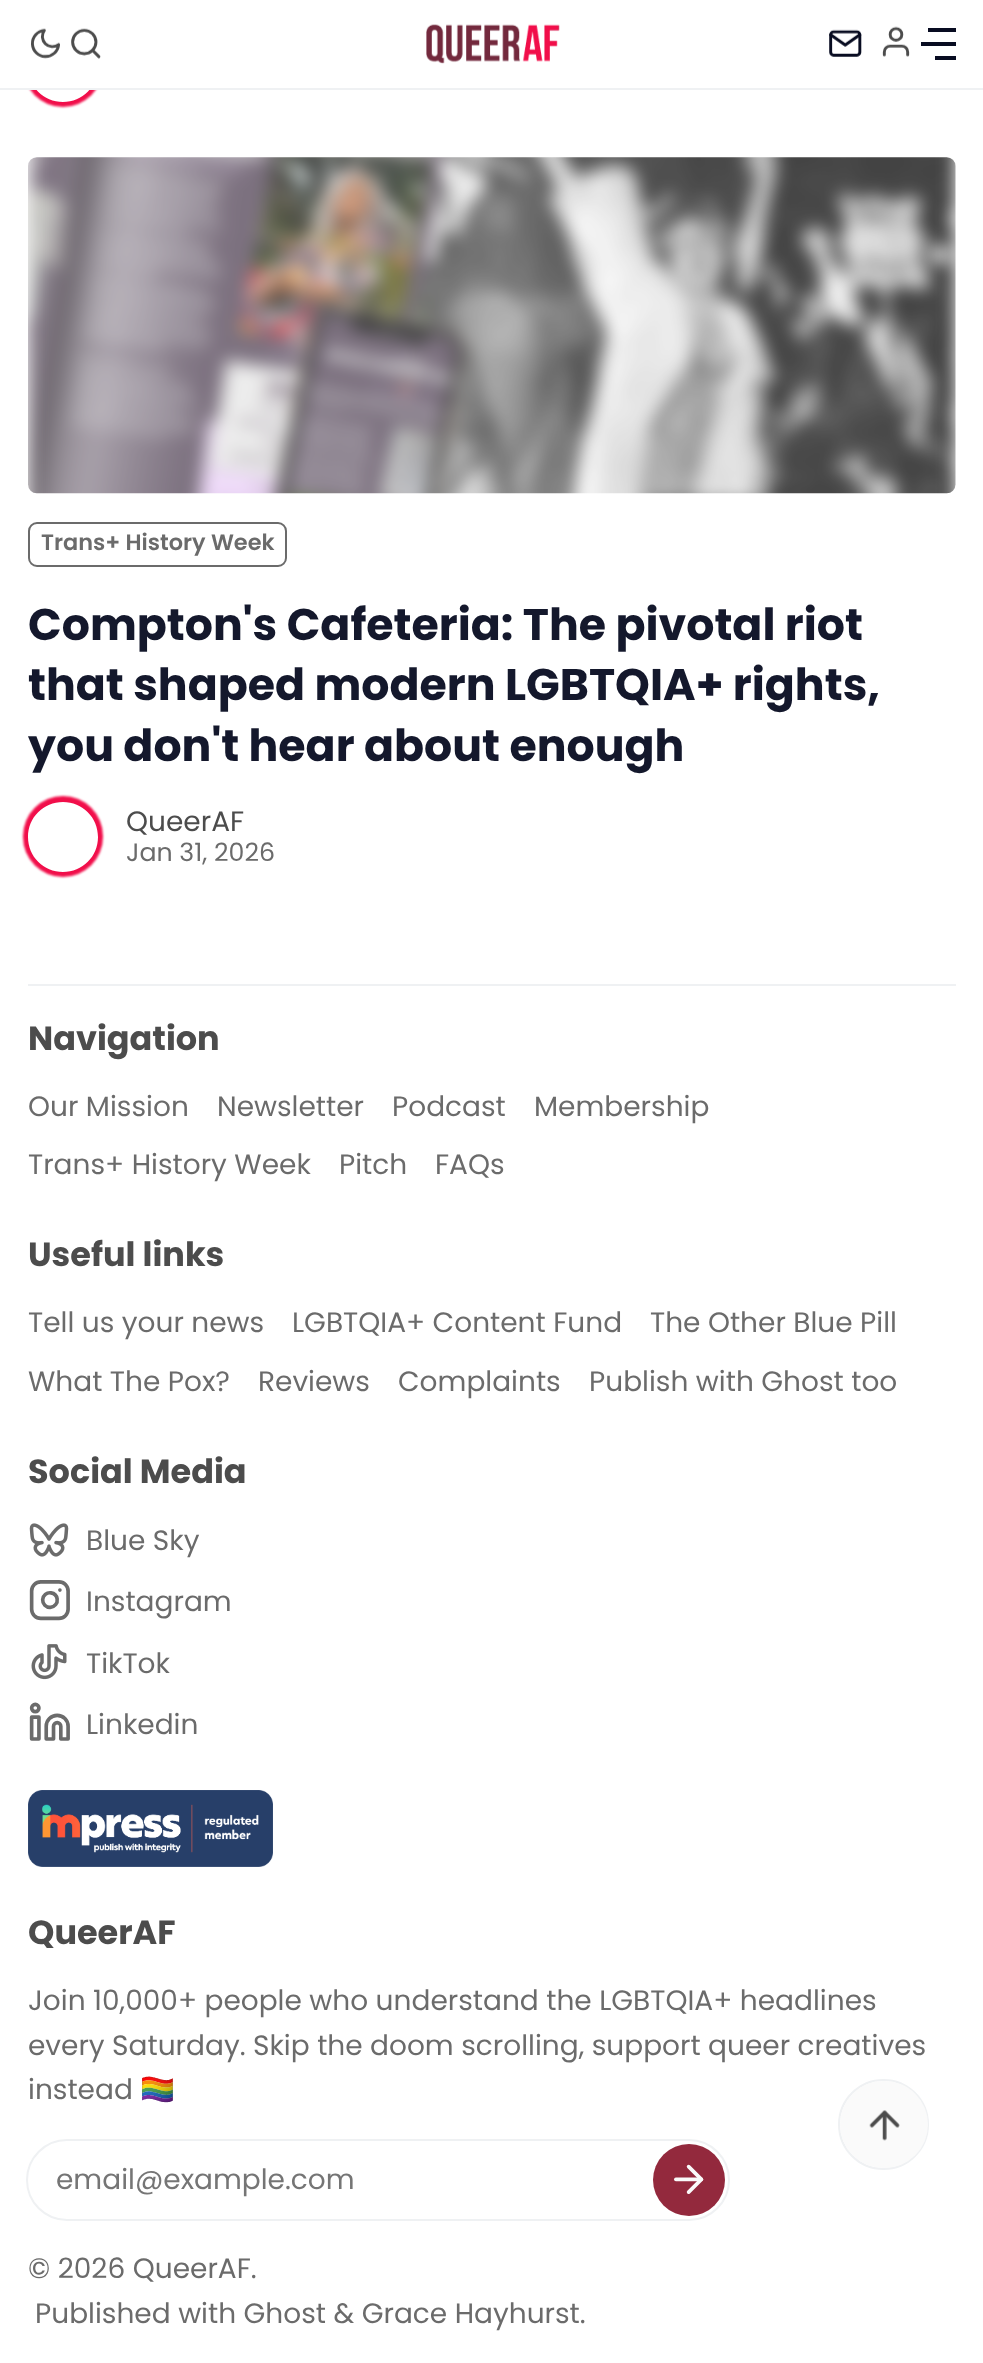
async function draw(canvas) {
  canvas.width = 983
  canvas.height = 2363
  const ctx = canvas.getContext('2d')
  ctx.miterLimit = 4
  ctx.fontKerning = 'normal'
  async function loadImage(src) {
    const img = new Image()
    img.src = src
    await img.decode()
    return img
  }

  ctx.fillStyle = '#fff'
  ctx.fillRect(0, 0, 983, 2363)
  ctx.save()
  ctx.beginPath()
  ctx.moveTo(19, 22)
  ctx.lineTo(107, 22)
  ctx.lineTo(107, 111)
  ctx.lineTo(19, 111)
  ctx.closePath()
  ctx.moveTo(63, 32)
  ctx.bezierCurveTo(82.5, 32, 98, 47.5, 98, 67)
  ctx.bezierCurveTo(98, 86.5, 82.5, 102, 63, 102)
  ctx.bezierCurveTo(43.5, 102, 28, 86.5, 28, 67)
  ctx.bezierCurveTo(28, 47.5, 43.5, 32, 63, 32)
  ctx.closePath()
  ctx.clip('evenodd')
  ctx.fillStyle = '#f10e4a'
  ctx.filter = 'blur(1px)'
  ctx.beginPath()
  ctx.roundRect(23, 26, 80, 81, 40)
  ctx.fill()
  ctx.filter = 'none'
  ctx.restore()
  ctx.fillRect(21, 24, 84, 64)
  ctx.fillStyle = '#eff1f3'
  ctx.fillRect(0, 88, 983, 2)
  ctx.drawImage(await loadImage('image0.png'), 31, 28, 29, 31)
  ctx.drawImage(await loadImage('image1.png'), 71, 28, 30, 31)
  ctx.drawImage(await loadImage('image2.png'), 426, 24, 134, 40)
  ctx.drawImage(await loadImage('image3.png'), 829, 29, 33, 28)
  ctx.drawImage(await loadImage('image4.png'), 882, 26, 28, 31)
  ctx.fillStyle = '#080c21'
  ctx.fillRect(921, 42, 35, 4)
  ctx.fillRect(928, 28, 28, 4)
  ctx.fillRect(935, 56, 21, 4)
  ctx.drawImage(await loadImage('image5.png'), 28, 157, 928, 337)
  ctx.beginPath()
  ctx.roundRect(29, 523, 257, 43, 8)
  ctx.strokeStyle = '#6b6b6b'
  ctx.lineWidth = 2
  ctx.stroke()
  ctx.font = '600 22.4px Poppins'
  ctx.fillStyle = '#6b6b6b'
  ctx.fillText('Trans+ History Week', 41, 550)
  ctx.font = 'bold 44.25px Poppins'
  ctx.fillStyle = '#14182c'
  ctx.fillText('Compton\'s Cafeteria: The pivotal riot', 28, 640)
  ctx.fillText('that shaped modern LGBTQIA+ rights,', 28, 700)
  ctx.fillText('you don\'t hear about enough', 28, 761)
  ctx.save()
  ctx.beginPath()
  ctx.moveTo(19, 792)
  ctx.lineTo(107, 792)
  ctx.lineTo(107, 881)
  ctx.lineTo(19, 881)
  ctx.closePath()
  ctx.moveTo(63, 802)
  ctx.bezierCurveTo(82.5, 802, 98, 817.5, 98, 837)
  ctx.bezierCurveTo(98, 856.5, 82.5, 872, 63, 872)
  ctx.bezierCurveTo(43.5, 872, 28, 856.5, 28, 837)
  ctx.bezierCurveTo(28, 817.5, 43.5, 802, 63, 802)
  ctx.closePath()
  ctx.clip('evenodd')
  ctx.fillStyle = '#f10e4a'
  ctx.filter = 'blur(1px)'
  ctx.beginPath()
  ctx.roundRect(23, 796, 80, 81, 40)
  ctx.fill()
  ctx.filter = 'none'
  ctx.restore()
  ctx.font = '28px Poppins'
  ctx.fillStyle = '#4c4c4c'
  ctx.fillText('QueerAF', 126, 831)
  ctx.font = '25.25px Poppins'
  ctx.fillStyle = '#6b6b6b'
  ctx.fillText('Jan 31, 2026', 126, 861)
  ctx.fillStyle = '#eff1f3'
  ctx.fillRect(28, 984, 928, 2)
  ctx.font = 'bold 33.5px Poppins'
  ctx.fillStyle = '#4c4c4c'
  ctx.fillText('Navigation', 28, 1050)
  ctx.font = '28px Poppins'
  ctx.fillStyle = '#6b6b6b'
  ctx.fillText('Our Mission', 28, 1116)
  ctx.fillText('Newsletter', 217, 1116)
  ctx.fillText('Podcast', 392, 1116)
  ctx.fillText('Membership', 534, 1116)
  ctx.fillText('Trans+ History Week', 28, 1174)
  ctx.fillText('Pitch', 339, 1174)
  ctx.fillText('FAQs', 435, 1174)
  ctx.font = 'bold 33.5px Poppins'
  ctx.fillStyle = '#4c4c4c'
  ctx.fillText('Useful links', 28, 1266)
  ctx.font = '28px Poppins'
  ctx.fillStyle = '#6b6b6b'
  ctx.fillText('Tell us your news', 28, 1332)
  ctx.fillText('LGBTQIA+ Content Fund', 292, 1332)
  ctx.fillText('The Other Blue Pill', 650, 1332)
  ctx.fillText('What The Pox?', 28, 1391)
  ctx.fillText('Reviews', 258, 1391)
  ctx.fillText('Complaints', 398, 1391)
  ctx.fillText('Publish with Ghost too', 589, 1391)
  ctx.font = 'bold 33.5px Poppins'
  ctx.fillStyle = '#4c4c4c'
  ctx.fillText('Social Media', 28, 1483)
  ctx.drawImage(await loadImage('image6.png'), 29, 1523, 40, 34)
  ctx.font = '28px Poppins'
  ctx.fillStyle = '#6b6b6b'
  ctx.fillText('Blue Sky', 86, 1550)
  ctx.drawImage(await loadImage('image7.png'), 29, 1580, 41, 41)
  ctx.fillText('Instagram', 86, 1611)
  ctx.drawImage(await loadImage('image8.png'), 31, 1644, 36, 36)
  ctx.fillText('TikTok', 86, 1673)
  ctx.drawImage(await loadImage('image9.png'), 29, 1702, 41, 39)
  ctx.fillText('Linkedin', 86, 1734)
  ctx.drawImage(await loadImage('image10.png'), 28, 1790, 245, 77)
  ctx.font = 'bold 33.5px Poppins'
  ctx.fillStyle = '#4c4c4c'
  ctx.fillText('QueerAF', 28, 1944)
  ctx.font = '28px Poppins'
  ctx.fillStyle = '#6b6b6b'
  ctx.fillText('Join 10,000+ people who understand the LGBTQIA+ headlines', 28, 2010)
  ctx.fillText('every Saturday. Skip the doom scrolling, support queer creatives', 28, 2055)
  ctx.fillText('instead', 28, 2099)
  ctx.font = '28px Noto Color Emoji'
  ctx.fillText('🏳️‍🌈', 140, 2099)
  ctx.beginPath()
  ctx.roundRect(27, 2140, 702, 80, 40)
  ctx.strokeStyle = '#eff1f3'
  ctx.stroke()
  ctx.font = '28px Poppins'
  ctx.fillStyle = '#757575'
  ctx.fillText('email@example.com', 56, 2189)
  ctx.fillStyle = '#93293d'
  ctx.beginPath()
  ctx.arc(689, 2180, 36, 0, 2 * Math.PI)
  ctx.fill()
  ctx.drawImage(await loadImage('image11.png'), 673, 2164, 31, 30)
  ctx.fillStyle = '#6b6b6b'
  ctx.fillText('© 2026 QueerAF.', 28, 2278)
  ctx.fillText('Published with Ghost & Grace Hayhurst.', 35, 2323)
  ctx.beginPath()
  ctx.arc(883.5, 2124.5, 44.5, 0, 2 * Math.PI)
  ctx.stroke()
  ctx.fillStyle = '#fafafa'
  ctx.beginPath()
  ctx.roundRect(840, 2081, 88, 87, 43.5)
  ctx.fill()
  ctx.drawImage(await loadImage('image12.png'), 869, 2110, 31, 31)
}

draw(document.querySelector('canvas'))
